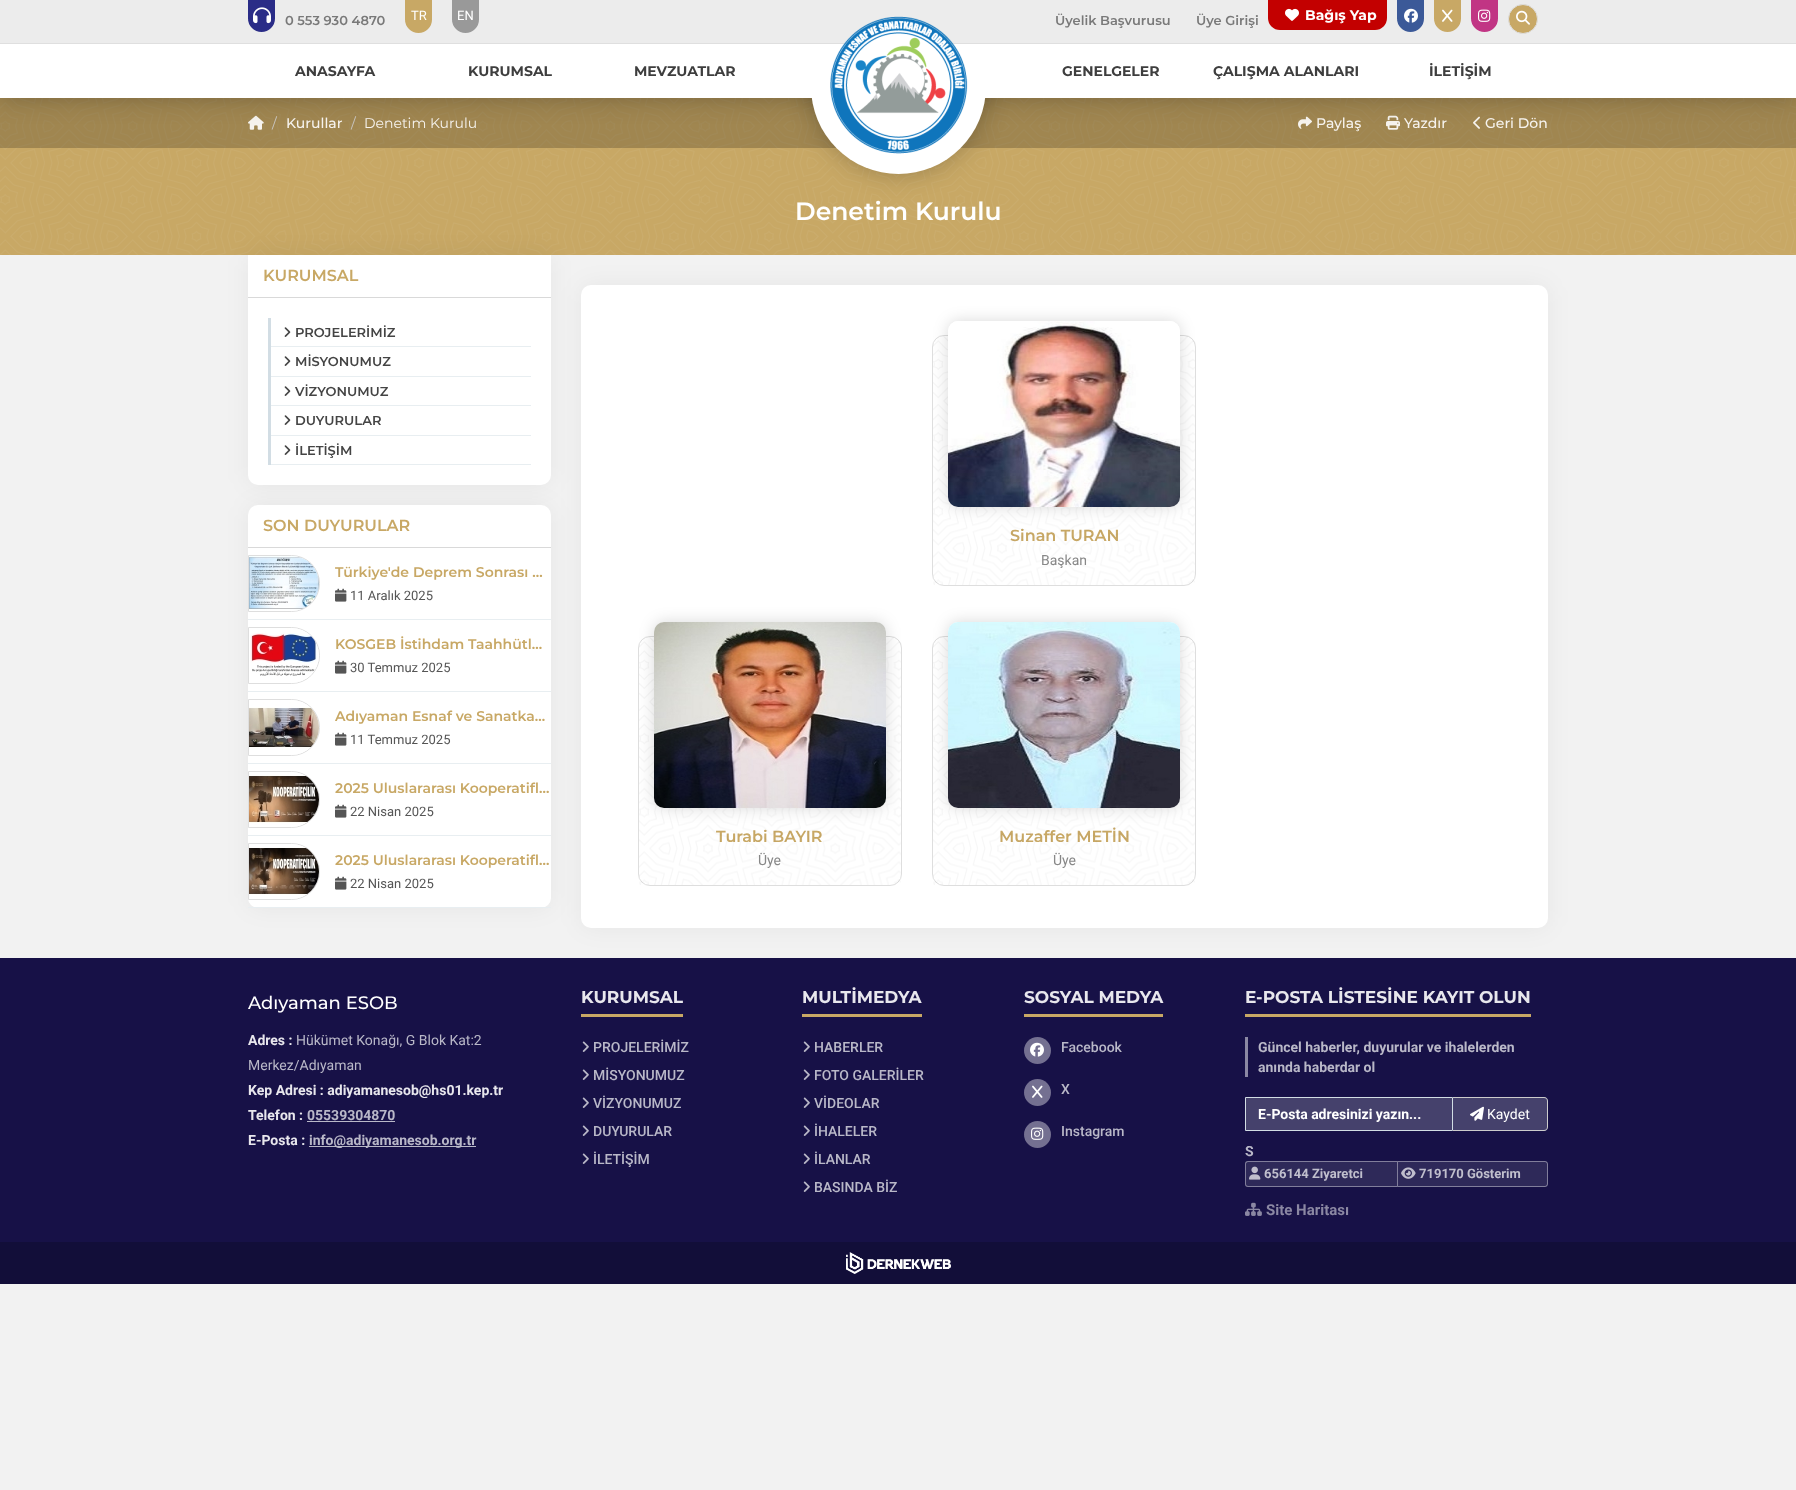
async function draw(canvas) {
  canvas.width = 1796
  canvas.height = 1490
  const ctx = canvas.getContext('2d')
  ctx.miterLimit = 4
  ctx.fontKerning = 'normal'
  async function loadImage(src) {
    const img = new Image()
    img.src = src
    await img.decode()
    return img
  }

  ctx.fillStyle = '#f2f2f2'
  ctx.fillRect(0, 0, 1796, 1490)
  ctx.fillStyle = '#c8a865'
  ctx.fillRect(0, 98, 1796, 157)
  ctx.drawImage(await loadImage('image7.png'), 0, 98, 1796, 157)
  ctx.fillStyle = '#00000033'
  ctx.fillRect(0, 98, 1796, 50)
  ctx.fillStyle = '#00000040'
  ctx.filter = 'blur(12.5px)'
  ctx.beginPath()
  ctx.roundRect(811, -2, 175, 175, 87.5)
  ctx.fill()
  ctx.filter = 'none'
  ctx.drawImage(await loadImage('image8.png'), 248, 115, 16, 15)
  ctx.drawImage(await loadImage('image9.png'), 1298, 116, 14, 13)
  ctx.drawImage(await loadImage('image10.png'), 1386, 115, 14, 15)
  ctx.drawImage(await loadImage('image11.png'), 1473, 116, 7, 13)
  ctx.filter = 'blur(12.5px)'
  ctx.beginPath()
  ctx.rect(0, 44, 1796, 54)
  ctx.fill()
  ctx.filter = 'none'
  ctx.fillStyle = '#fff'
  ctx.fillRect(0, 44, 1796, 54)
  ctx.beginPath()
  ctx.arc(898.5, 86.5, 87.5, 0, 2 * Math.PI)
  ctx.fill()
  ctx.fillStyle = '#ececec'
  ctx.fillRect(0, 0, 1796, 43)
  ctx.fillStyle = '#dfdfdf'
  ctx.fillRect(0, 43, 1796, 1)
  ctx.fillStyle = '#2a2c87'
  ctx.beginPath()
  ctx.roundRect(248, 0, 27, 32, [0, 0, 13.5, 13.5])
  ctx.fill()
  ctx.drawImage(await loadImage('image0.png'), 253, 7, 18, 17)
  ctx.font = '600 13px Montserrat'
  ctx.fillStyle = '#797979'
  ctx.fillText('0 553 930 4870', 285, 25)
  ctx.fillStyle = '#c8a865'
  ctx.beginPath()
  ctx.roundRect(405, 0, 27, 33, [0, 0, 13.5, 13.5])
  ctx.fill()
  ctx.font = '13px Roboto'
  ctx.fillStyle = '#fff'
  ctx.fillText('TR', 411, 20)
  ctx.fillStyle = '#999'
  ctx.beginPath()
  ctx.roundRect(452, 0, 27, 33, [0, 0, 13.5, 13.5])
  ctx.fill()
  ctx.fillStyle = '#fff'
  ctx.fillText('EN', 457, 20)
  ctx.font = '600 13px Montserrat'
  ctx.fillStyle = '#797979'
  ctx.fillText('Üyelik Başvurusu', 1055, 25)
  ctx.fillText('Üye Girişi', 1196, 25)
  ctx.fillStyle = '#c30000'
  ctx.beginPath()
  ctx.roundRect(1268, 0, 119, 30, [0, 0, 12, 12])
  ctx.fill()
  ctx.drawImage(await loadImage('image1.png'), 1285, 8, 14, 13)
  ctx.font = 'bold 14px Montserrat'
  ctx.fillStyle = '#fff'
  ctx.fillText('Bağış Yap', 1305, 20)
  ctx.fillStyle = '#3b5998'
  ctx.beginPath()
  ctx.roundRect(1397, 0, 27, 32, [0, 0, 13.5, 13.5])
  ctx.fill()
  ctx.drawImage(await loadImage('image2.png'), 1404, 8, 14, 15)
  ctx.fillStyle = '#c8a865'
  ctx.beginPath()
  ctx.roundRect(1434, 0, 27, 32, [0, 0, 13.5, 13.5])
  ctx.fill()
  ctx.drawImage(await loadImage('image3.png'), 1442, 9, 11, 13)
  ctx.fillStyle = '#c13584'
  ctx.beginPath()
  ctx.roundRect(1471, 0, 27, 32, [0, 0, 13.5, 13.5])
  ctx.fill()
  ctx.drawImage(await loadImage('image4.png'), 1478, 9, 13, 13)
  ctx.fillStyle = '#c8a865'
  ctx.beginPath()
  ctx.arc(1523, 19, 14.5, 0, 2 * Math.PI)
  ctx.fill()
  ctx.strokeStyle = '#dedede'
  ctx.stroke()
  ctx.drawImage(await loadImage('image5.png'), 1516, 10, 14, 15)
  ctx.fillStyle = '#3e3e3e'
  ctx.fillText('ANASAYFA', 295, 76)
  ctx.fillText('KURUMSAL', 468, 76)
  ctx.fillText('MEVZUATLAR', 634, 76)
  ctx.fillText('GENELGELER', 1062, 76)
  ctx.fillText('ÇALIŞMA ALANLARI', 1213, 76)
  ctx.fillText('İLETİŞİM', 1429, 76)
  ctx.drawImage(await loadImage('image6.png'), 830, 16, 138, 138)
  ctx.font = '14px Montserrat'
  ctx.fillStyle = '#c8c5c0'
  ctx.fillText('/', 272, 128)
  ctx.font = '500 14px Montserrat'
  ctx.fillStyle = '#f6f3ee'
  ctx.fillText('Kurullar', 286, 128)
  ctx.font = '14px Montserrat'
  ctx.fillStyle = '#c8c5c0'
  ctx.fillText('/', 351, 128)
  ctx.fillStyle = '#f6f3ee'
  ctx.fillText('Denetim Kurulu', 364, 128)
  ctx.font = '500 14px Montserrat'
  ctx.fillText('Paylaş', 1316, 128)
  ctx.fillText('Yazdır', 1404, 128)
  ctx.fillText('Geri Dön', 1485, 128)
  ctx.font = '600 25px Montserrat'
  ctx.fillStyle = '#fff'
  ctx.fillText('Denetim Kurulu', 795, 220)
  ctx.fillStyle = '#0000000d'
  ctx.filter = 'blur(12.5px)'
  ctx.beginPath()
  ctx.roundRect(248, 255, 303, 230, 10)
  ctx.fill()
  ctx.filter = 'none'
  ctx.fillStyle = '#fff'
  ctx.beginPath()
  ctx.roundRect(248, 255, 303, 230, [0, 0, 10, 10])
  ctx.fill()
  ctx.fillStyle = '#d9d9d9'
  ctx.fillRect(248, 297, 303, 1)
  ctx.font = '600 16px Montserrat'
  ctx.fillStyle = '#c8a865'
  ctx.fillText('KURUMSAL', 263, 281)
  ctx.fillStyle = '#d2dde4'
  ctx.fillRect(268, 318, 3, 147)
  ctx.fillStyle = '#e8eef1'
  ctx.fillRect(271, 346, 260, 1)
  ctx.drawImage(await loadImage('image12.png'), 284, 327, 7, 10)
  ctx.font = '600 13px Montserrat'
  ctx.fillStyle = '#444'
  ctx.fillText('PROJELERİMİZ', 295, 337)
  ctx.fillStyle = '#e8eef1'
  ctx.fillRect(271, 376, 260, 1)
  ctx.drawImage(await loadImage('image12.png'), 284, 356, 7, 10)
  ctx.fillStyle = '#444'
  ctx.fillText('MİSYONUMUZ', 295, 366)
  ctx.fillStyle = '#e8eef1'
  ctx.fillRect(271, 405, 260, 1)
  ctx.drawImage(await loadImage('image12.png'), 284, 386, 7, 10)
  ctx.fillStyle = '#444'
  ctx.fillText('VİZYONUMUZ', 295, 396)
  ctx.fillStyle = '#e8eef1'
  ctx.fillRect(271, 435, 260, 1)
  ctx.drawImage(await loadImage('image12.png'), 284, 415, 7, 10)
  ctx.fillStyle = '#444'
  ctx.fillText('DUYURULAR', 295, 425)
  ctx.fillStyle = '#e8eef1'
  ctx.fillRect(271, 464, 260, 1)
  ctx.drawImage(await loadImage('image12.png'), 284, 445, 7, 10)
  ctx.fillStyle = '#444'
  ctx.fillText('İLETİŞİM', 295, 455)
  ctx.fillStyle = '#0000000d'
  ctx.filter = 'blur(12.5px)'
  ctx.beginPath()
  ctx.roundRect(248, 505, 303, 403, 10)
  ctx.fill()
  ctx.filter = 'none'
  ctx.fillStyle = '#fff'
  ctx.beginPath()
  ctx.roundRect(248, 505, 303, 403, 10)
  ctx.fill()
  ctx.fillStyle = '#d9d9d9'
  ctx.fillRect(248, 547, 303, 1)
  ctx.font = '600 16px Montserrat'
  ctx.fillStyle = '#c8a865'
  ctx.fillText('SON DUYURULAR', 263, 531)
  ctx.fillStyle = '#e8eef1'
  ctx.fillRect(248, 619, 303, 1)
  ctx.beginPath()
  ctx.roundRect(248.5, 555.5, 71, 56, [0, 28, 28, 0])
  ctx.stroke()
  ctx.drawImage(await loadImage('image13.png'), 249, 556, 70, 55)
  ctx.font = '600 14px Montserrat'
  ctx.fillStyle = '#c8a865'
  ctx.fillText('Türkiye\'de Deprem Sonrası …', 335, 577)
  ctx.drawImage(await loadImage('image14.png'), 335, 588, 12, 14)
  ctx.font = '13px Roboto'
  ctx.fillStyle = '#555'
  ctx.fillText('11 Aralık 2025', 350, 600)
  ctx.fillStyle = '#e8eef1'
  ctx.fillRect(248, 691, 303, 1)
  ctx.beginPath()
  ctx.roundRect(248.5, 627.5, 71, 56, [0, 28, 28, 0])
  ctx.stroke()
  ctx.drawImage(await loadImage('image15.png'), 250, 628, 69, 55)
  ctx.font = '600 14px Montserrat'
  ctx.fillStyle = '#c8a865'
  ctx.fillText('KOSGEB İstihdam Taahhütl…', 335, 649)
  ctx.drawImage(await loadImage('image14.png'), 335, 660, 12, 14)
  ctx.font = '13px Roboto'
  ctx.fillStyle = '#555'
  ctx.fillText('30 Temmuz 2025', 350, 672)
  ctx.fillStyle = '#e8eef1'
  ctx.fillRect(248, 763, 303, 1)
  ctx.beginPath()
  ctx.roundRect(248.5, 699.5, 71, 56, [0, 28, 28, 0])
  ctx.stroke()
  ctx.drawImage(await loadImage('image16.png'), 249, 700, 70, 55)
  ctx.font = '600 14px Montserrat'
  ctx.fillStyle = '#c8a865'
  ctx.fillText('Adıyaman Esnaf ve Sanatka…', 335, 721)
  ctx.drawImage(await loadImage('image14.png'), 335, 732, 12, 14)
  ctx.font = '13px Roboto'
  ctx.fillStyle = '#555'
  ctx.fillText('11 Temmuz 2025', 350, 744)
  ctx.fillStyle = '#e8eef1'
  ctx.fillRect(248, 835, 303, 1)
  ctx.beginPath()
  ctx.roundRect(248.5, 771.5, 71, 56, [0, 28, 28, 0])
  ctx.stroke()
  ctx.drawImage(await loadImage('image17.png'), 249, 772, 70, 55)
  ctx.font = '600 14px Montserrat'
  ctx.fillStyle = '#c8a865'
  ctx.fillText('2025 Uluslararası Kooperatifl…', 335, 793)
  ctx.drawImage(await loadImage('image14.png'), 335, 804, 12, 14)
  ctx.font = '13px Roboto'
  ctx.fillStyle = '#555'
  ctx.fillText('22 Nisan 2025', 350, 816)
  ctx.fillStyle = '#e8eef1'
  ctx.fillRect(248, 907, 303, 1)
  ctx.beginPath()
  ctx.roundRect(248.5, 843.5, 71, 56, [0, 28, 28, 0])
  ctx.stroke()
  ctx.drawImage(await loadImage('image18.png'), 249, 844, 70, 55)
  ctx.font = '600 14px Montserrat'
  ctx.fillStyle = '#c8a865'
  ctx.fillText('2025 Uluslararası Kooperatifl…', 335, 865)
  ctx.drawImage(await loadImage('image14.png'), 335, 876, 12, 14)
  ctx.font = '13px Roboto'
  ctx.fillStyle = '#555'
  ctx.fillText('22 Nisan 2025', 350, 888)
  ctx.fillStyle = '#0000000d'
  ctx.filter = 'blur(12.5px)'
  ctx.beginPath()
  ctx.roundRect(581, 285, 967, 643, 10)
  ctx.fill()
  ctx.filter = 'none'
  ctx.fillStyle = '#fff'
  ctx.beginPath()
  ctx.roundRect(581, 285, 967, 643, 10)
  ctx.fill()
  ctx.beginPath()
  ctx.roundRect(932.5, 335.5, 263, 250, 11.5)
  ctx.stroke()
  ctx.font = '600 16px Montserrat'
  ctx.fillStyle = '#c8a865'
  ctx.fillText('Sinan TURAN', 1010, 541)
  ctx.font = '14px Roboto'
  ctx.fillStyle = '#888'
  ctx.fillText('Başkan', 1041, 565)
  ctx.drawImage(await loadImage('image20.png'), 933, 336, 262, 249)
  ctx.fillStyle = '#00000026'
  ctx.filter = 'blur(7.5px)'
  ctx.beginPath()
  ctx.roundRect(948, 321, 232, 186, 10)
  ctx.fill()
  ctx.filter = 'none'
  ctx.fillStyle = '#fff'
  ctx.beginPath()
  ctx.roundRect(948, 321, 232, 186, 10)
  ctx.fill()
  ctx.drawImage(await loadImage('image19.png'), 948, 321, 232, 186)
  ctx.beginPath()
  ctx.roundRect(638.5, 636.5, 263, 249, 11.5)
  ctx.stroke()
  ctx.font = '600 16px Montserrat'
  ctx.fillStyle = '#c8a865'
  ctx.fillText('Turabi BAYIR', 716, 842)
  ctx.font = '14px Roboto'
  ctx.fillStyle = '#888'
  ctx.fillText('Üye', 758, 865)
  ctx.drawImage(await loadImage('image22.png'), 639, 637, 262, 248)
  ctx.fillStyle = '#00000026'
  ctx.filter = 'blur(7.5px)'
  ctx.beginPath()
  ctx.roundRect(654, 622, 232, 186, 10)
  ctx.fill()
  ctx.filter = 'none'
  ctx.fillStyle = '#fff'
  ctx.beginPath()
  ctx.roundRect(654, 622, 232, 186, 10)
  ctx.fill()
  ctx.drawImage(await loadImage('image21.png'), 654, 622, 232, 186)
  ctx.beginPath()
  ctx.roundRect(932.5, 636.5, 263, 249, 11.5)
  ctx.stroke()
  ctx.font = '600 16px Montserrat'
  ctx.fillStyle = '#c8a865'
  ctx.fillText('Muzaffer METİN', 999, 842)
  ctx.font = '14px Roboto'
  ctx.fillStyle = '#888'
  ctx.fillText('Üye', 1053, 865)
  ctx.drawImage(await loadImage('image24.png'), 933, 637, 262, 248)
  ctx.fillStyle = '#00000026'
  ctx.filter = 'blur(7.5px)'
  ctx.beginPath()
  ctx.roundRect(948, 622, 232, 186, 10)
  ctx.fill()
  ctx.filter = 'none'
  ctx.fillStyle = '#fff'
  ctx.beginPath()
  ctx.roundRect(948, 622, 232, 186, 10)
  ctx.fill()
  ctx.drawImage(await loadImage('image23.png'), 948, 622, 232, 186)
  ctx.fillStyle = '#171147'
  ctx.fillRect(0, 958, 1796, 284)
  ctx.font = '500 18px Montserrat'
  ctx.fillStyle = '#fff'
  ctx.fillText('Adıyaman ESOB', 248, 1009)
  ctx.font = 'bold 14px Roboto'
  ctx.fillStyle = '#e8e7ed'
  ctx.fillText('Adres :', 248, 1045)
  ctx.font = '14px Roboto'
  ctx.fillStyle = '#b9b8c8'
  ctx.fillText('Hükümet Konağı, G Blok Kat:2', 296, 1045)
  ctx.fillText('Merkez/Adıyaman', 248, 1070)
  ctx.font = 'bold 14px Roboto'
  ctx.fillStyle = '#e8e7ed'
  ctx.fillText('Kep Adresi : adiyamanesob@hs01.kep.tr', 248, 1095)
  ctx.fillText('Telefon :', 248, 1120)
  ctx.fillStyle = '#b9b8c8'
  ctx.fillText('05539304870', 307, 1120)
  ctx.fillRect(307, 1121, 88, 1)
  ctx.fillStyle = '#e8e7ed'
  ctx.fillText('E-Posta :', 248, 1145)
  ctx.fillStyle = '#b9b8c8'
  ctx.fillRect(309, 1146, 167, 1)
  ctx.fillText('info@adiyamanesob.org.tr', 309, 1145)
  ctx.fillStyle = '#c8a865'
  ctx.fillRect(581, 1014, 102, 3)
  ctx.font = 'bold 17px Montserrat'
  ctx.fillStyle = '#e8e7ed'
  ctx.fillText('KURUMSAL', 581, 1003)
  ctx.drawImage(await loadImage('image25.png'), 582, 1041, 7, 11)
  ctx.font = '500 14px Roboto'
  ctx.fillStyle = '#b9b8c8'
  ctx.fillText('PROJELERİMİZ', 593, 1052)
  ctx.drawImage(await loadImage('image25.png'), 582, 1069, 7, 11)
  ctx.fillText('MİSYONUMUZ', 593, 1080)
  ctx.drawImage(await loadImage('image25.png'), 582, 1097, 7, 11)
  ctx.fillText('VİZYONUMUZ', 593, 1108)
  ctx.drawImage(await loadImage('image25.png'), 582, 1125, 7, 11)
  ctx.fillText('DUYURULAR', 593, 1136)
  ctx.drawImage(await loadImage('image25.png'), 582, 1153, 7, 11)
  ctx.fillText('İLETİŞİM', 593, 1164)
  ctx.fillStyle = '#c8a865'
  ctx.fillRect(802, 1014, 120, 3)
  ctx.font = 'bold 17px Montserrat'
  ctx.fillStyle = '#e8e7ed'
  ctx.fillText('MULTİMEDYA', 802, 1003)
  ctx.drawImage(await loadImage('image25.png'), 803, 1041, 7, 11)
  ctx.font = '500 14px Roboto'
  ctx.fillStyle = '#b9b8c8'
  ctx.fillText('HABERLER', 814, 1052)
  ctx.drawImage(await loadImage('image25.png'), 803, 1069, 7, 11)
  ctx.fillText('FOTO GALERİLER', 814, 1080)
  ctx.drawImage(await loadImage('image25.png'), 803, 1097, 7, 11)
  ctx.fillText('VİDEOLAR', 814, 1108)
  ctx.drawImage(await loadImage('image25.png'), 803, 1125, 7, 11)
  ctx.fillText('İHALELER', 814, 1136)
  ctx.drawImage(await loadImage('image25.png'), 803, 1153, 7, 11)
  ctx.fillText('İLANLAR', 814, 1164)
  ctx.drawImage(await loadImage('image25.png'), 803, 1181, 7, 11)
  ctx.fillText('BASINDA BİZ', 814, 1192)
  ctx.fillStyle = '#c8a865'
  ctx.fillRect(1024, 1014, 139, 3)
  ctx.font = 'bold 17px Montserrat'
  ctx.fillStyle = '#e8e7ed'
  ctx.fillText('SOSYAL MEDYA', 1024, 1003)
  ctx.fillStyle = '#747091'
  ctx.beginPath()
  ctx.arc(1037.5, 1050.5, 13.5, 0, 2 * Math.PI)
  ctx.fill()
  ctx.drawImage(await loadImage('image26.png'), 1030, 1042, 14, 15)
  ctx.font = '500 14px Roboto'
  ctx.fillStyle = '#b9b8c8'
  ctx.fillText('Facebook', 1061, 1052)
  ctx.fillStyle = '#747091'
  ctx.beginPath()
  ctx.arc(1037.5, 1092.5, 13.5, 0, 2 * Math.PI)
  ctx.fill()
  ctx.drawImage(await loadImage('image27.png'), 1032, 1085, 11, 13)
  ctx.fillStyle = '#b9b8c8'
  ctx.fillText('X', 1061, 1094)
  ctx.fillStyle = '#747091'
  ctx.beginPath()
  ctx.arc(1037.5, 1134.5, 13.5, 0, 2 * Math.PI)
  ctx.fill()
  ctx.drawImage(await loadImage('image28.png'), 1031, 1127, 13, 13)
  ctx.fillStyle = '#b9b8c8'
  ctx.fillText('Instagram', 1061, 1136)
  ctx.fillStyle = '#c8a865'
  ctx.fillRect(1245, 1014, 286, 3)
  ctx.font = 'bold 17px Montserrat'
  ctx.fillStyle = '#e8e7ed'
  ctx.fillText('E-POSTA LİSTESİNE KAYIT OLUN', 1245, 1003)
  ctx.fillStyle = '#8b88a3'
  ctx.fillRect(1245, 1037, 3, 40)
  ctx.font = 'bold 14px Roboto'
  ctx.fillStyle = '#b9b8c8'
  ctx.fillText('Güncel haberler, duyurular ve ihalelerden', 1258, 1052)
  ctx.fillText('anında haberdar ol', 1258, 1072)
  ctx.fillStyle = '#45416c'
  ctx.beginPath()
  ctx.rect(1245.5, 1097.5, 207, 33)
  ctx.fill()
  ctx.strokeStyle = '#d2dde4'
  ctx.stroke()
  ctx.fillStyle = '#fff'
  ctx.fillText('E-Posta adresinizi yazın...', 1258, 1119)
  ctx.fillStyle = '#45416c'
  ctx.beginPath()
  ctx.roundRect(1453, 1097, 95, 34, [0, 4, 4, 0])
  ctx.fill()
  ctx.fillStyle = '#ccc'
  ctx.beginPath()
  ctx.moveTo(1453, 1097)
  ctx.lineTo(1544, 1097)
  ctx.bezierCurveTo(1546, 1097, 1548, 1099, 1548, 1101)
  ctx.lineTo(1548, 1127)
  ctx.bezierCurveTo(1548, 1129, 1546, 1131, 1544, 1131)
  ctx.lineTo(1453, 1131)
  ctx.closePath()
  ctx.moveTo(1453, 1098)
  ctx.lineTo(1544, 1098)
  ctx.bezierCurveTo(1546, 1098, 1547, 1099, 1547, 1101)
  ctx.lineTo(1547, 1127)
  ctx.bezierCurveTo(1547, 1129, 1546, 1130, 1544, 1130)
  ctx.lineTo(1453, 1130)
  ctx.closePath()
  ctx.fill('evenodd')
  ctx.drawImage(await loadImage('image29.png'), 1470, 1106, 14, 15)
  ctx.font = '14px Roboto'
  ctx.fillStyle = '#fff'
  ctx.fillText('Kaydet', 1487, 1119)
  ctx.font = 'bold 14px Roboto'
  ctx.fillStyle = '#b9b8c8'
  ctx.fillText('S', 1245, 1156)
  ctx.fillStyle = '#2e2959'
  ctx.beginPath()
  ctx.roundRect(1245, 1161, 152, 26, [3, 0, 0, 3])
  ctx.fill()
  ctx.fillStyle = '#ffffff66'
  ctx.beginPath()
  ctx.moveTo(1248, 1161)
  ctx.lineTo(1397, 1161)
  ctx.lineTo(1397, 1187)
  ctx.lineTo(1248, 1187)
  ctx.bezierCurveTo(1246, 1187, 1245, 1186, 1245, 1184)
  ctx.lineTo(1245, 1164)
  ctx.bezierCurveTo(1245, 1162, 1246, 1161, 1248, 1161)
  ctx.closePath()
  ctx.moveTo(1248, 1162)
  ctx.lineTo(1397, 1162)
  ctx.lineTo(1397, 1186)
  ctx.lineTo(1248, 1186)
  ctx.bezierCurveTo(1247, 1186, 1246, 1185, 1246, 1184)
  ctx.lineTo(1246, 1164)
  ctx.bezierCurveTo(1246, 1163, 1247, 1162, 1248, 1162)
  ctx.closePath()
  ctx.fill('evenodd')
  ctx.drawImage(await loadImage('image30.png'), 1249, 1166, 12, 14)
  ctx.font = 'bold 13px Roboto'
  ctx.fillStyle = '#c0bfcd'
  ctx.fillText('656144 Ziyaretci', 1264, 1178)
  ctx.fillStyle = '#2e2959'
  ctx.beginPath()
  ctx.roundRect(1397, 1161, 151, 26, [0, 3, 3, 0])
  ctx.fill()
  ctx.beginPath()
  ctx.roundRect(1397.5, 1161.5, 150, 25, [0, 2.5, 2.5, 0])
  ctx.strokeStyle = '#ffffff66'
  ctx.stroke()
  ctx.drawImage(await loadImage('image31.png'), 1401, 1167, 15, 12)
  ctx.fillStyle = '#c0bfcd'
  ctx.fillText('719170 Gösterim', 1419, 1178)
  ctx.drawImage(await loadImage('image32.png'), 1245, 1202, 17, 14)
  ctx.font = 'bold 15px Roboto'
  ctx.fillStyle = '#8b88a3'
  ctx.fillText('Site Haritası', 1266, 1215)
  ctx.fillStyle = '#120e39'
  ctx.fillRect(0, 1242, 1796, 42)
  ctx.drawImage(await loadImage('image33.png'), 846, 1252, 105, 22)
}

draw(document.querySelector('canvas'))
